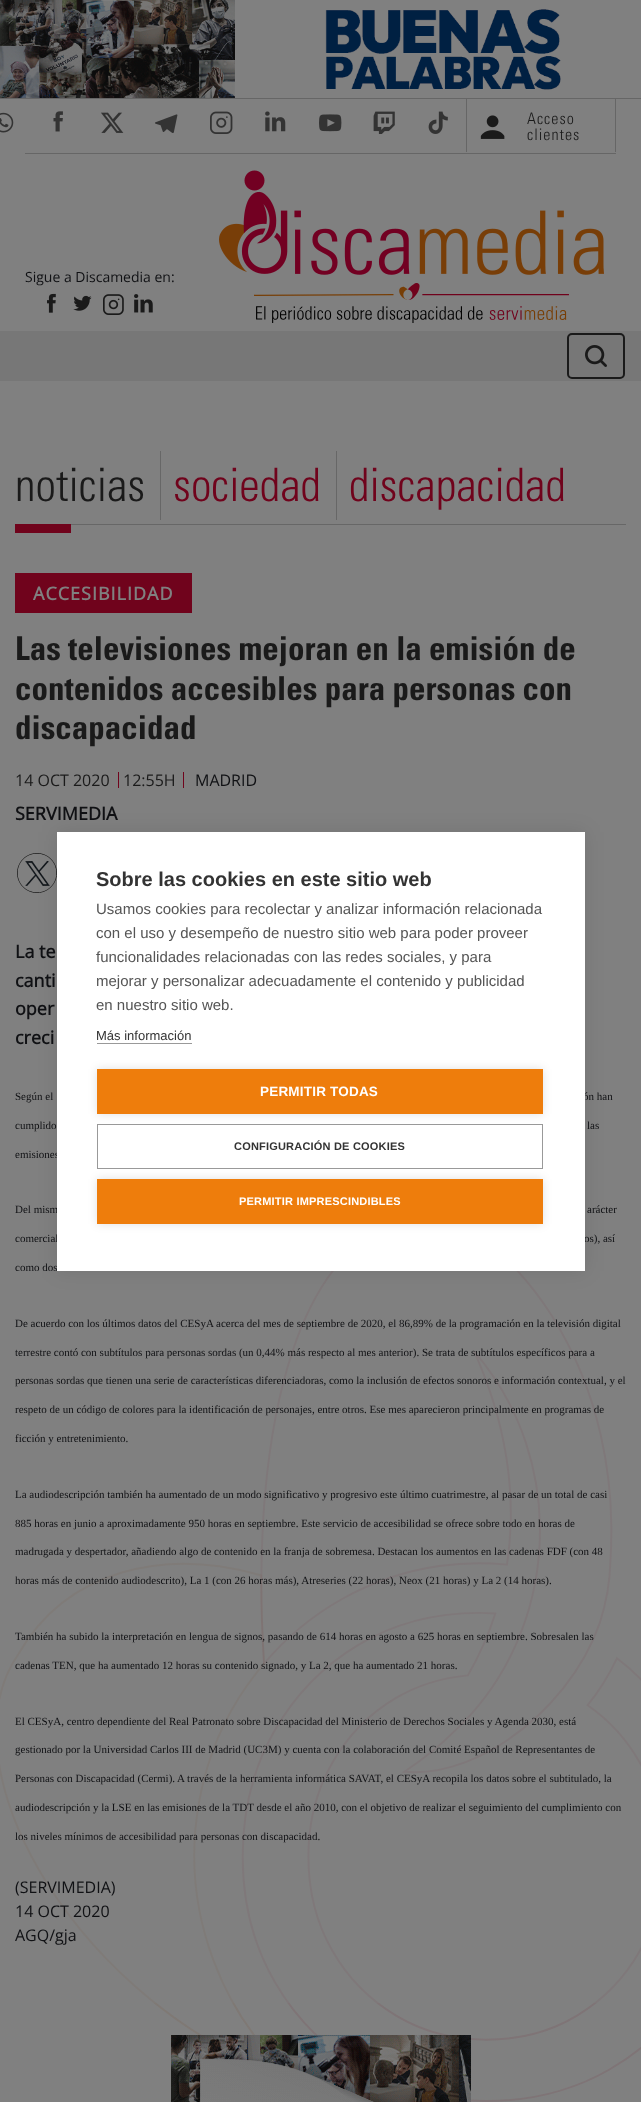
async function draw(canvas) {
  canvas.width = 641
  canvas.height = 2102
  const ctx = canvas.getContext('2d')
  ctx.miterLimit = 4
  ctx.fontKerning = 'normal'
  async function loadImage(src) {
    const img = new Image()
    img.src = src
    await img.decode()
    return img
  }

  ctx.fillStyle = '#808080'
  ctx.fillRect(0, 0, 641, 2102)
  ctx.fillStyle = '#666'
  ctx.fillRect(0, 98, 641, 1)
  ctx.drawImage(await loadImage('image0.png'), 0, 0, 641, 98)
  ctx.drawImage(await loadImage('image1.png'), 0, 1271, 641, 831)
  ctx.fillRect(25, 153, 591, 1)
  ctx.drawImage(await loadImage('image2.png'), 0, 112, 14, 21)
  ctx.drawImage(await loadImage('image3.png'), 53, 111, 10, 21)
  ctx.drawImage(await loadImage('image4.png'), 101, 112, 23, 21)
  ctx.drawImage(await loadImage('image5.png'), 155, 114, 23, 19)
  ctx.drawImage(await loadImage('image6.png'), 210, 111, 23, 23)
  ctx.drawImage(await loadImage('image7.png'), 265, 111, 21, 21)
  ctx.drawImage(await loadImage('image8.png'), 319, 114, 23, 18)
  ctx.drawImage(await loadImage('image9.png'), 373, 111, 22, 23)
  ctx.drawImage(await loadImage('image10.png'), 428, 111, 20, 23)
  ctx.fillRect(615, 99, 1, 53)
  ctx.fillRect(466, 99, 1, 53)
  ctx.drawImage(await loadImage('image11.png'), 480, 115, 25, 24)
  ctx.letterSpacing = '1px'
  ctx.font = '300 16px Univers'
  ctx.fillStyle = '#1a1a1a'
  ctx.fillText('Acceso', 527, 124)
  ctx.fillText('clientes', 527, 140)
  ctx.letterSpacing = '0px'
  ctx.font = '14px Open Sans'
  ctx.fillStyle = '#101114'
  ctx.fillText('Sigue a Discamedia en:', 25, 282)
  ctx.drawImage(await loadImage('image12.png'), 47, 293, 9, 20)
  ctx.drawImage(await loadImage('image13.png'), 73, 295, 19, 16)
  ctx.drawImage(await loadImage('image14.png'), 103, 294, 21, 21)
  ctx.drawImage(await loadImage('image15.png'), 134, 294, 19, 19)
  ctx.drawImage(await loadImage('image16.png'), 219, 170, 385, 105)
  ctx.drawImage(await loadImage('image17.png'), 254, 283, 315, 40)
  ctx.fillStyle = '#777'
  ctx.fillRect(0, 331, 641, 50)
  ctx.drawImage(await loadImage('image18.png'), 585, 345, 22, 22)
  ctx.beginPath()
  ctx.roundRect(568, 334, 56, 44, 4)
  ctx.strokeStyle = '#1a1a1a'
  ctx.lineWidth = 2
  ctx.stroke()
  ctx.fillStyle = '#676767'
  ctx.fillRect(71, 524, 555, 1)
  ctx.font = '300 46px Univers'
  ctx.fillStyle = '#1a1a1a'
  ctx.fillText('noticias', 15, 501)
  ctx.fillStyle = '#676767'
  ctx.fillRect(160, 451, 1, 69)
  ctx.fillStyle = '#70031c'
  ctx.fillText('sociedad', 173, 501)
  ctx.fillStyle = '#676767'
  ctx.fillRect(336, 451, 1, 69)
  ctx.fillStyle = '#70031c'
  ctx.fillText('discapacidad', 349, 501)
  ctx.fillRect(15, 524, 56, 9)
  ctx.fillRect(15, 573, 177, 40)
  ctx.letterSpacing = '1px'
  ctx.font = 'bold 18px Open Sans'
  ctx.fillStyle = '#808080'
  ctx.fillText('ACCESIBILIDAD', 33, 600)
  ctx.letterSpacing = '0px'
  ctx.font = 'bold 33px Univers'
  ctx.fillStyle = '#1a1a1a'
  ctx.fillText('Las televisiones mejoran en la emisión de', 15, 660)
  ctx.fillText('contenidos accesibles para personas con', 15, 700)
  ctx.fillText('discapacidad', 15, 739)
  ctx.fillStyle = '#70031c'
  ctx.fillRect(118, 772, 1, 16)
  ctx.font = '16px Open Sans'
  ctx.fillStyle = '#1a1a1a'
  ctx.fillText('14 OCT 2020', 15, 786)
  ctx.fillStyle = '#70031c'
  ctx.fillRect(183, 772, 1, 16)
  ctx.fillStyle = '#1a1a1a'
  ctx.fillText('12:55H', 123, 786)
  ctx.fillStyle = '#101114'
  ctx.fillText('MADRID', 195, 786)
  ctx.font = 'bold 18px Open Sans'
  ctx.fillText('SERVIMEDIA', 15, 820)
  ctx.drawImage(await loadImage('image19.png'), 17, 853, 40, 40)
  ctx.fillText('La te', 15, 958)
  ctx.fillText('canti', 15, 987)
  ctx.fillText('oper', 15, 1015)
  ctx.fillText('creci', 15, 1044)
  ctx.font = '11px Liberation Serif'
  ctx.fillText('Según el', 15, 1100)
  ctx.fillText('ón han', 583, 1100)
  ctx.fillText('cumplido', 15, 1129)
  ctx.fillText('las', 587, 1129)
  ctx.fillText('emisiones', 15, 1158)
  ctx.fillText('Del mism', 15, 1213)
  ctx.fillText('arácter', 587, 1213)
  ctx.fillText('comercial', 15, 1242)
  ctx.fillText('os), así', 584, 1242)
  ctx.fillText('como dos', 15, 1271)
  ctx.fillText('De acuerdo con los últimos datos del CESyA acerca del mes de septiembre de 2020, el 86,89% de la programación en la televisión digital', 15, 1327)
  ctx.fillText('terrestre contó con subtítulos para personas sordas (un 0,44% más respecto al mes anterior). Se trata de subtítulos específicos para a', 15, 1356)
  ctx.fillText('personas sordas que tienen una serie de características diferenciadoras, como la inclusión de efectos sonoros e información contextual, y el', 15, 1384)
  ctx.fillText('respeto de un código de colores para la identificación de personajes, entre otros. Ese mes aparecieron principalmente en programas de', 15, 1413)
  ctx.fillText('ficción y entretenimiento.', 15, 1442)
  ctx.fillText('La audiodescripción también ha aumentado de un modo significativo y progresivo este último cuatrimestre, al pasar de un total de casi', 15, 1498)
  ctx.fillText('885 horas en junio a aproximadamente 950 horas en septiembre. Este servicio de accesibilidad se ofrece sobre todo en horas de', 15, 1527)
  ctx.fillText('madrugada y despertador, añadiendo algo de contenido en la franja de sobremesa. Destacan los aumentos en las cadenas FDF (con 48', 15, 1555)
  ctx.fillText('horas más de contenido audiodescrito), La 1 (con 26 horas más), Atreseries (22 horas), Neox (21 horas) y La 2 (14 horas).', 15, 1584)
  ctx.fillText('También ha subido la interpretación en lengua de signos, pasando de 614 horas en agosto a 625 horas en septiembre. Sobresalen las', 15, 1640)
  ctx.fillText('cadenas TEN, que ha aumentado 12 horas su contenido signado, y La 2, que ha aumentado 21 horas.', 15, 1669)
  ctx.fillText('El CESyA, centro dependiente del Real Patronato sobre Discapacidad del Ministerio de Derechos Sociales y Agenda 2030, está', 15, 1725)
  ctx.fillText('gestionado por la Universidad Carlos III de Madrid (UC3M) y cuenta con la colaboración del Comité Español de Representantes de', 15, 1753)
  ctx.fillText('Personas con Discapacidad (Cermi).', 15, 1782)
  ctx.fillText('A través de la herramienta informática SAVAT, el CESyA recopila los datos sobre el subtitulado, la', 177, 1782)
  ctx.fillText('audiodescripción y la LSE en las emisiones de la TDT desde el año 2010, con el objetivo de realizar el seguimiento del cumplimiento con', 15, 1811)
  ctx.fillText('los niveles mínimos de accesibilidad para personas con discapacidad.', 15, 1840)
  ctx.font = '16px Open Sans'
  ctx.fillText('(SERVIMEDIA)', 15, 1893)
  ctx.fillText('14 OCT 2020', 15, 1917)
  ctx.fillText('AGQ/gja', 15, 1941)
  ctx.drawImage(await loadImage('image20.png'), 171, 2035, 300, 67)
  ctx.fillStyle = '#0000001a'
  ctx.filter = 'blur(10px)'
  ctx.beginPath()
  ctx.rect(57, 832, 528, 439)
  ctx.fill()
  ctx.filter = 'none'
  ctx.fillStyle = '#fff'
  ctx.fillRect(57, 832, 528, 439)
  ctx.font = 'bold 20px Liberation Sans'
  ctx.fillStyle = '#333'
  ctx.fillText('Sobre las cookies en este sitio web', 96, 886)
  ctx.font = '15px Liberation Sans'
  ctx.fillStyle = '#555'
  ctx.fillText('Usamos cookies para recolectar y analizar información relacionada', 96, 914)
  ctx.fillText('con el uso y desempeño de nuestro sitio web para poder proveer', 96, 938)
  ctx.fillText('funcionalidades relacionadas con las redes sociales, y para', 96, 962)
  ctx.fillText('mejorar y personalizar adecuadamente el contenido y publicidad', 96, 986)
  ctx.fillText('en nuestro sitio web.', 96, 1010)
  ctx.font = '13px Liberation Sans'
  ctx.fillStyle = '#333'
  ctx.fillText('Más información', 96, 1040)
  ctx.fillStyle = '#999'
  ctx.fillRect(97, 1043, 95, 1)
  ctx.fillStyle = '#0000001f'
  ctx.filter = 'blur(5px)'
  ctx.beginPath()
  ctx.rect(97, 1069, 446, 45)
  ctx.fill()
  ctx.filter = 'none'
  ctx.fillStyle = '#ee7d0c'
  ctx.fillRect(97, 1069, 446, 45)
  ctx.letterSpacing = '0.2px'
  ctx.font = 'bold 13.5px Liberation Sans'
  ctx.fillStyle = '#fff'
  ctx.fillText('PERMITIR TODAS', 260, 1096)
  ctx.strokeStyle = '#999'
  ctx.lineWidth = 1
  ctx.strokeRect(97.5, 1124.5, 445, 44)
  ctx.font = 'bold 11px Liberation Sans'
  ctx.fillStyle = '#333'
  ctx.fillText('CONFIGURACIÓN DE COOKIES', 234, 1150)
  ctx.fillStyle = '#0000001f'
  ctx.filter = 'blur(5px)'
  ctx.beginPath()
  ctx.rect(97, 1179, 446, 45)
  ctx.fill()
  ctx.filter = 'none'
  ctx.fillStyle = '#ee7d0c'
  ctx.fillRect(97, 1179, 446, 45)
  ctx.fillStyle = '#fff'
  ctx.fillText('PERMITIR IMPRESCINDIBLES', 239, 1205)
}

draw(document.querySelector('canvas'))
